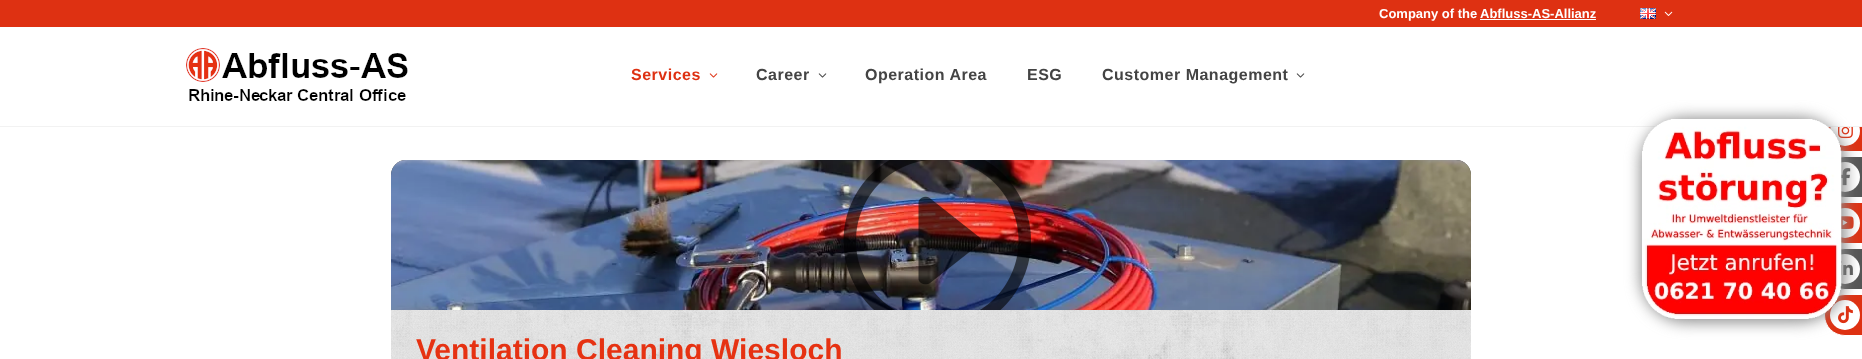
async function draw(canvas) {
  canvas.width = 1862
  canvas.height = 359
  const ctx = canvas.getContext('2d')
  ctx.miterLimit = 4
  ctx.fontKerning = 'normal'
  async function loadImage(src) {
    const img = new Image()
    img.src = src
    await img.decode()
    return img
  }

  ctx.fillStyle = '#fff'
  ctx.fillRect(0, 0, 1862, 359)
  ctx.fillStyle = '#de3112'
  ctx.fillRect(0, 0, 1862, 27)
  ctx.font = 'bold 13px Liberation Sans'
  ctx.fillStyle = '#fff'
  ctx.fillText('Company of the', 1379, 18)
  ctx.fillText('Abfluss-AS-Allianz', 1480, 18)
  ctx.fillRect(1480, 19, 116, 1)
  ctx.drawImage(await loadImage('image0.png'), 1640, 8, 16, 11)
  ctx.drawImage(await loadImage('image1.png'), 1664, 11, 9, 5)
  ctx.fillStyle = '#de3112'
  ctx.beginPath()
  ctx.moveTo(1845, 110.5)
  ctx.lineTo(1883.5, 110.5)
  ctx.lineTo(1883.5, 151.5)
  ctx.lineTo(1845, 151.5)
  ctx.bezierCurveTo(1833.5, 151.5, 1824.5, 142.5, 1824.5, 131)
  ctx.bezierCurveTo(1824.5, 119.5, 1833.5, 110.5, 1845, 110.5)
  ctx.closePath()
  ctx.fill()
  ctx.strokeStyle = '#fff'
  ctx.stroke()
  ctx.fillStyle = '#fff'
  ctx.beginPath()
  ctx.arc(1845, 131, 15, 0, 2 * Math.PI)
  ctx.fill()
  ctx.fillRect(1824, 110, 38, 16)
  ctx.fillStyle = '#f2f2f2'
  ctx.fillRect(0, 126, 1862, 1)
  ctx.drawImage(await loadImage('image2.png'), 186, 48, 222, 53)
  ctx.letterSpacing = '0.5px'
  ctx.font = 'bold 16px Liberation Sans'
  ctx.fillStyle = '#de3112'
  ctx.fillText('Services', 631, 80)
  ctx.drawImage(await loadImage('image3.png'), 709, 73, 9, 5)
  ctx.fillStyle = '#444'
  ctx.fillText('Career', 756, 80)
  ctx.drawImage(await loadImage('image4.png'), 818, 73, 9, 5)
  ctx.fillText('Operation Area', 865, 80)
  ctx.fillText('ESG', 1027, 80)
  ctx.fillText('Customer Management', 1102, 80)
  ctx.drawImage(await loadImage('image4.png'), 1296, 73, 9, 5)
  ctx.drawImage(await loadImage('image5.png'), 391, 160, 1080, 15)
  ctx.drawImage(await loadImage('image6.png'), 391, 160, 1080, 150)
  ctx.drawImage(await loadImage('image7.png'), 843, 160, 188, 150)
  ctx.fillStyle = '#f2f2f2'
  ctx.fillRect(391, 310, 1080, 49)
  ctx.drawImage(await loadImage('image8.png'), 391, 310, 1080, 49)
  ctx.letterSpacing = '0px'
  ctx.font = 'bold 30px Liberation Sans'
  ctx.fillStyle = '#e63212'
  ctx.fillText('Ventilation Cleaning Wiesloch', 416, 360)
  ctx.drawImage(await loadImage('image10.png'), 1838, 127, 15, 12)
  ctx.fillStyle = '#555'
  ctx.beginPath()
  ctx.moveTo(1845, 156.5)
  ctx.lineTo(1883.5, 156.5)
  ctx.lineTo(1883.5, 197.5)
  ctx.lineTo(1845, 197.5)
  ctx.bezierCurveTo(1833.5, 197.5, 1824.5, 188.5, 1824.5, 177)
  ctx.bezierCurveTo(1824.5, 165.5, 1833.5, 156.5, 1845, 156.5)
  ctx.closePath()
  ctx.fill()
  ctx.stroke()
  ctx.fillStyle = '#fff'
  ctx.beginPath()
  ctx.arc(1845, 177, 15, 0, 2 * Math.PI)
  ctx.fill()
  ctx.drawImage(await loadImage('image11.png'), 1841, 168, 10, 18)
  ctx.fillStyle = '#de3112'
  ctx.beginPath()
  ctx.moveTo(1845, 202.5)
  ctx.lineTo(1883.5, 202.5)
  ctx.lineTo(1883.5, 243.5)
  ctx.lineTo(1845, 243.5)
  ctx.bezierCurveTo(1833.5, 243.5, 1824.5, 234.5, 1824.5, 223)
  ctx.bezierCurveTo(1824.5, 211.5, 1833.5, 202.5, 1845, 202.5)
  ctx.closePath()
  ctx.fill()
  ctx.stroke()
  ctx.fillStyle = '#fff'
  ctx.beginPath()
  ctx.arc(1845, 223, 15, 0, 2 * Math.PI)
  ctx.fill()
  ctx.drawImage(await loadImage('image12.png'), 1841, 216, 13, 13)
  ctx.fillStyle = '#555'
  ctx.beginPath()
  ctx.moveTo(1845, 248.5)
  ctx.lineTo(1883.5, 248.5)
  ctx.lineTo(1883.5, 289.5)
  ctx.lineTo(1845, 289.5)
  ctx.bezierCurveTo(1833.5, 289.5, 1824.5, 280.5, 1824.5, 269)
  ctx.bezierCurveTo(1824.5, 257.5, 1833.5, 248.5, 1845, 248.5)
  ctx.closePath()
  ctx.fill()
  ctx.stroke()
  ctx.fillStyle = '#fff'
  ctx.beginPath()
  ctx.arc(1845, 269, 15, 0, 2 * Math.PI)
  ctx.fill()
  ctx.drawImage(await loadImage('image13.png'), 1841, 260, 12, 15)
  ctx.fillStyle = '#de3112'
  ctx.beginPath()
  ctx.moveTo(1845, 294.5)
  ctx.lineTo(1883.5, 294.5)
  ctx.lineTo(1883.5, 335.5)
  ctx.lineTo(1845, 335.5)
  ctx.bezierCurveTo(1833.5, 335.5, 1824.5, 326.5, 1824.5, 315)
  ctx.bezierCurveTo(1824.5, 303.5, 1833.5, 294.5, 1845, 294.5)
  ctx.closePath()
  ctx.fill()
  ctx.stroke()
  ctx.fillStyle = '#fff'
  ctx.beginPath()
  ctx.arc(1845, 315, 15, 0, 2 * Math.PI)
  ctx.fill()
  ctx.drawImage(await loadImage('image14.png'), 1838, 306, 15, 18)
  ctx.fillStyle = '#888'
  ctx.filter = 'blur(7.5px)'
  ctx.beginPath()
  ctx.roundRect(1641, 118, 204, 204, 45)
  ctx.fill()
  ctx.filter = 'none'
  ctx.drawImage(await loadImage('image9.png'), 1642, 119, 200, 200)
}

draw(document.querySelector('canvas'))
